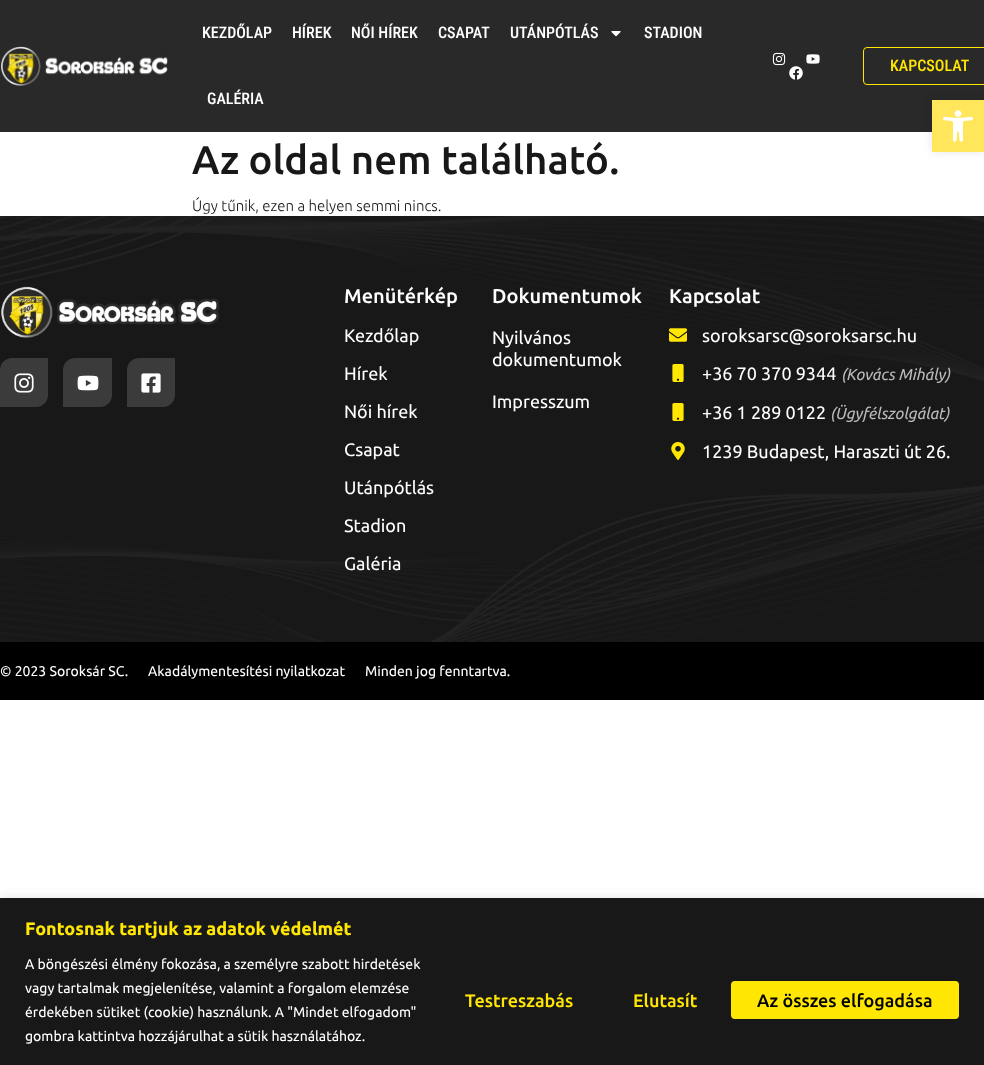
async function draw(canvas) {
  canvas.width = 984
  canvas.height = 1065
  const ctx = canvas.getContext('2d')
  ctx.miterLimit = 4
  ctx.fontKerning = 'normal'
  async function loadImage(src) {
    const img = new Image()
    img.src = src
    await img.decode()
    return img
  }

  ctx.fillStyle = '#fff'
  ctx.fillRect(0, 0, 984, 1065)
  ctx.fillStyle = '#292929'
  ctx.fillRect(0, 0, 984, 132)
  ctx.drawImage(await loadImage('image0.png'), 1, 46, 167, 40)
  ctx.font = '500 16px Roboto Condensed'
  ctx.fillStyle = '#fff'
  ctx.fillText('KEZDŐLAP', 202, 38)
  ctx.fillText('HÍREK', 292, 38)
  ctx.fillText('NŐI HÍREK', 351, 38)
  ctx.fillText('CSAPAT', 438, 38)
  ctx.fillText('UTÁNPÓTLÁS', 510, 38)
  ctx.drawImage(await loadImage('image1.png'), 611, 31, 10, 6)
  ctx.fillText('STADION', 644, 38)
  ctx.fillText('GALÉRIA', 207, 104)
  ctx.drawImage(await loadImage('image2.png'), 772, 52, 14, 14)
  ctx.drawImage(await loadImage('image3.png'), 806, 54, 14, 10)
  ctx.drawImage(await loadImage('image4.png'), 789, 66, 14, 14)
  ctx.beginPath()
  ctx.roundRect(863.5, 47.5, 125, 37, 3.5)
  ctx.strokeStyle = '#ffe603'
  ctx.stroke()
  ctx.fillStyle = '#ffe603'
  ctx.fillText('KAPCSOLAT', 890, 71)
  ctx.fillStyle = '#0000001a'
  ctx.filter = 'blur(5px)'
  ctx.beginPath()
  ctx.rect(932, 100, 52, 52)
  ctx.fill()
  ctx.filter = 'none'
  ctx.fillStyle = '#ffe65b'
  ctx.fillRect(932, 100, 52, 52)
  ctx.drawImage(await loadImage('image5.png'), 943, 110, 30, 32)
  ctx.font = '500 40px Ubuntu'
  ctx.fillStyle = '#181818'
  ctx.fillText('Az oldal nem található.', 192, 174)
  ctx.font = '300 15px Ubuntu'
  ctx.fillText('Úgy tűnik, ezen a helyen semmi nincs.', 192, 211)
  ctx.fillRect(0, 216, 984, 426)
  ctx.drawImage(await loadImage('image6.png'), 0, 216, 984, 426)
  ctx.drawImage(await loadImage('image7.png'), 1, 286, 218, 52)
  ctx.fillStyle = '#3b3b3b'
  ctx.beginPath()
  ctx.roundRect(0, 358, 48, 49, [12, 0, 12, 0])
  ctx.fill()
  ctx.drawImage(await loadImage('image8.png'), 14, 373, 20, 20)
  ctx.beginPath()
  ctx.roundRect(63, 358, 49, 49, [12, 0, 12, 0])
  ctx.fill()
  ctx.drawImage(await loadImage('image9.png'), 77, 375, 22, 16)
  ctx.beginPath()
  ctx.roundRect(127, 358, 48, 49, [12, 0, 12, 0])
  ctx.fill()
  ctx.drawImage(await loadImage('image10.png'), 141, 373, 20, 20)
  ctx.font = '500 20px Ubuntu'
  ctx.fillStyle = '#fff'
  ctx.fillText('Menütérkép', 344, 303)
  ctx.font = '18px Ubuntu'
  ctx.fillText('Kezdőlap', 344, 342)
  ctx.fillText('Hírek', 344, 380)
  ctx.fillText('Női hírek', 344, 418)
  ctx.fillText('Csapat', 344, 456)
  ctx.fillText('Utánpótlás', 344, 494)
  ctx.fillText('Stadion', 344, 532)
  ctx.fillText('Galéria', 344, 570)
  ctx.font = '500 20px Ubuntu'
  ctx.fillText('Dokumentumok', 492, 303)
  ctx.font = '18px Ubuntu'
  ctx.fillText('Nyilvános', 492, 344)
  ctx.fillText('dokumentumok', 492, 366)
  ctx.fillText('Impresszum', 492, 408)
  ctx.font = '500 20px Ubuntu'
  ctx.fillText('Kapcsolat', 669, 303)
  ctx.drawImage(await loadImage('image11.png'), 669, 328, 18, 14)
  ctx.font = '18px Ubuntu'
  ctx.fillText('soroksarsc@soroksarsc.hu', 702, 342)
  ctx.drawImage(await loadImage('image12.png'), 672, 364, 12, 18)
  ctx.fillText('+36 70 370 9344', 702, 380)
  ctx.font = 'italic 16px Ubuntu'
  ctx.fillStyle = '#bababa'
  ctx.fillText('(Kovács Mihály)', 841, 380)
  ctx.drawImage(await loadImage('image12.png'), 672, 403, 12, 18)
  ctx.font = '18px Ubuntu'
  ctx.fillStyle = '#fff'
  ctx.fillText('+36 1 289 0122', 702, 419)
  ctx.font = 'italic 16px Ubuntu'
  ctx.fillStyle = '#bababa'
  ctx.fillText('(Ügyfélszolgálat)', 830, 419)
  ctx.drawImage(await loadImage('image13.png'), 671, 442, 14, 18)
  ctx.font = '18px Ubuntu'
  ctx.fillStyle = '#fff'
  ctx.fillText('1239 Budapest, Haraszti út 26.', 702, 458)
  ctx.fillStyle = '#000'
  ctx.fillRect(0, 642, 984, 58)
  ctx.font = '14px Ubuntu'
  ctx.fillStyle = '#fff'
  ctx.fillText('© 2023 Soroksár SC.', 0, 676)
  ctx.fillText('Akadálymentesítési nyilatkozat', 148, 676)
  ctx.fillText('Minden jog fenntartva.', 365, 676)
  ctx.fillStyle = '#acabab4d'
  ctx.filter = 'blur(5px)'
  ctx.beginPath()
  ctx.rect(0, 897, 984, 167)
  ctx.fill()
  ctx.filter = 'none'
  ctx.fillStyle = '#181818'
  ctx.fillRect(0, 898, 984, 167)
  ctx.font = 'bold 18px Ubuntu'
  ctx.fillStyle = '#ffe603'
  ctx.fillText('Fontosnak tartjuk az adatok védelmét', 25, 935)
  ctx.font = '14px Ubuntu'
  ctx.fillStyle = '#fff'
  ctx.fillText('A böngészési élmény fokozása, a személyre szabott hirdetések', 25, 969)
  ctx.fillText('vagy tartalmak megjelenítése, valamint a forgalom elemzése', 25, 993)
  ctx.fillText('érdekében sütiket (cookie) használunk. A "Mindet elfogadom"', 25, 1017)
  ctx.fillText('gombra kattintva hozzájárulhat a sütik használatához.', 25, 1041)
  ctx.font = '500 18px Ubuntu'
  ctx.fillStyle = '#ffe603'
  ctx.fillText('Testreszabás', 465, 1007)
  ctx.fillText('Elutasít', 633, 1007)
  ctx.beginPath()
  ctx.roundRect(731, 981, 228, 38, 4)
  ctx.fill()
  ctx.fillStyle = '#000'
  ctx.fillText('Az összes elfogadása', 757, 1007)
}

draw(document.querySelector('canvas'))
